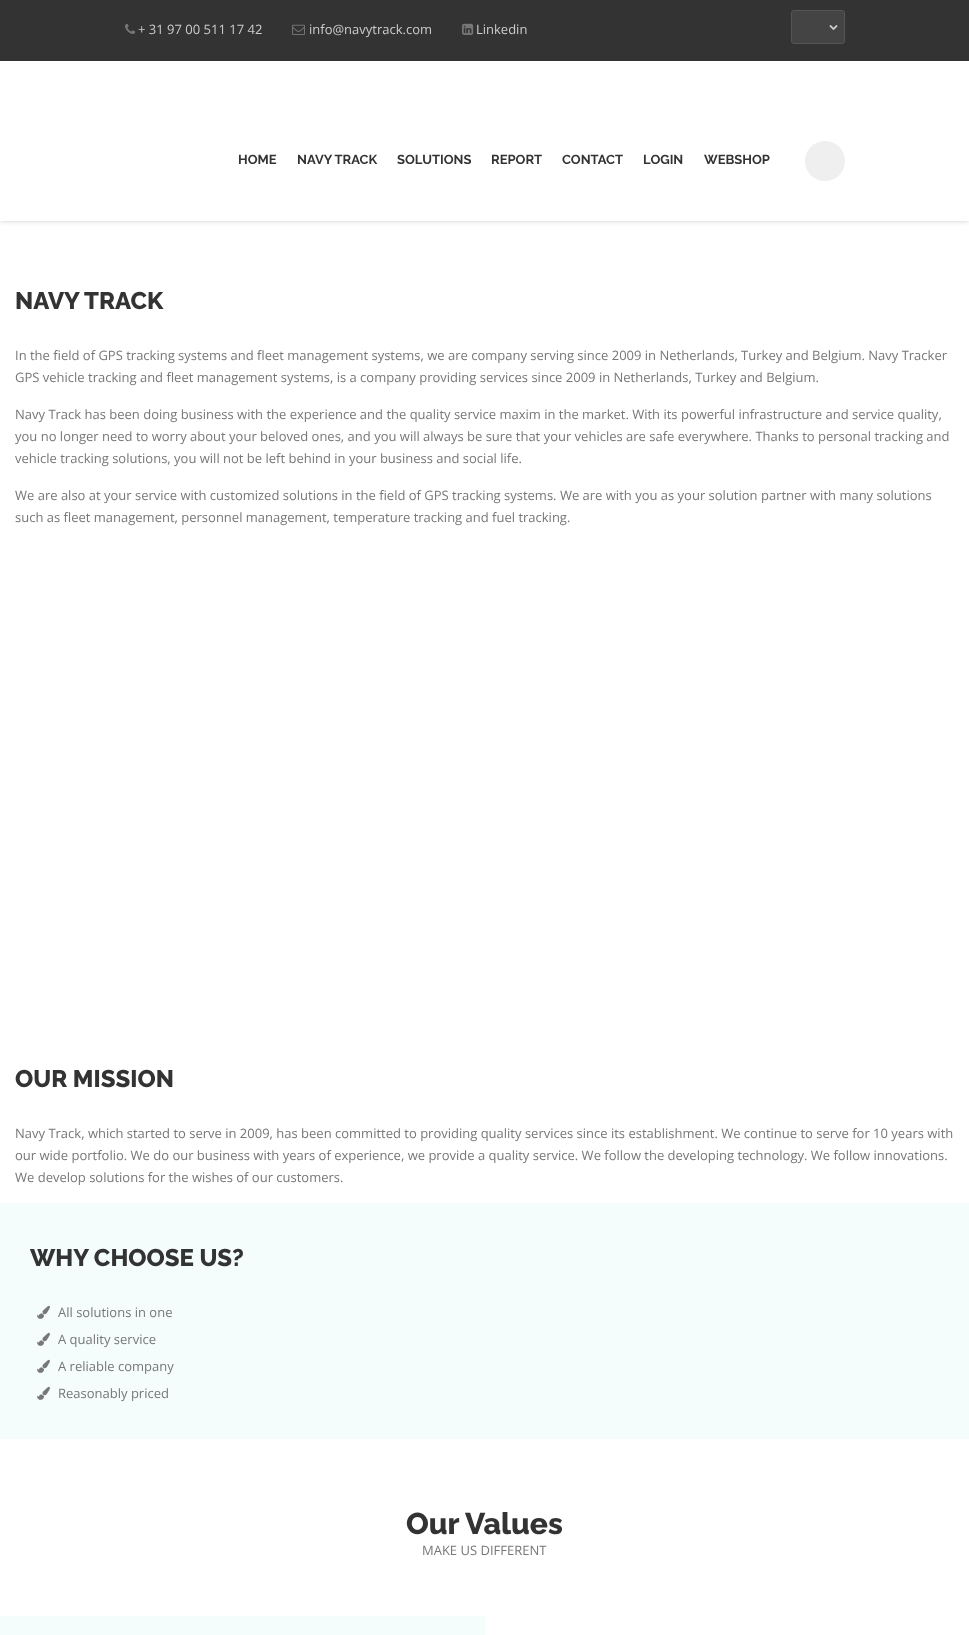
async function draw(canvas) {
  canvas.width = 969
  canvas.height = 1635
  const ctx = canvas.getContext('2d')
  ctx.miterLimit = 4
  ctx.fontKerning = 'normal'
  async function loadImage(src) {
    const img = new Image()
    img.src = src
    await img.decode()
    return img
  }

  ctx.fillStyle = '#fff'
  ctx.fillRect(0, 0, 969, 1635)
  ctx.fillStyle = '#00000033'
  ctx.filter = 'blur(2.5px)'
  ctx.beginPath()
  ctx.rect(0, 0, 969, 221)
  ctx.fill()
  ctx.filter = 'none'
  ctx.fillStyle = '#fff'
  ctx.fillRect(0, 61, 969, 160)
  ctx.fillStyle = '#333'
  ctx.fillRect(0, 0, 969, 61)
  ctx.drawImage(await loadImage('image0.png'), 125, 23, 11, 11)
  ctx.font = '13px Open Sans'
  ctx.fillStyle = '#ccc'
  ctx.fillText('+ 31 97 00 511 17 42', 138, 34)
  ctx.drawImage(await loadImage('image1.png'), 292, 24, 13, 11)
  ctx.fillText('info@navytrack.com', 309, 34)
  ctx.drawImage(await loadImage('image2.png'), 462, 23, 12, 12)
  ctx.fillText('Linkedin', 476, 34)
  ctx.fillStyle = '#444'
  ctx.beginPath()
  ctx.roundRect(791.5, 10.5, 53, 33, 2.5)
  ctx.fill()
  ctx.strokeStyle = '#555'
  ctx.stroke()
  ctx.drawImage(await loadImage('image3.png'), 829, 25, 9, 6)
  ctx.font = 'bold 13px Raleway'
  ctx.fillStyle = '#333'
  ctx.fillText('HOME', 238, 164)
  ctx.fillText('NAVY TRACK', 297, 164)
  ctx.fillText('SOLUTIONS', 397, 164)
  ctx.fillText('REPORT', 491, 164)
  ctx.fillText('CONTACT', 562, 164)
  ctx.fillText('LOGIN', 643, 164)
  ctx.fillText('WEBSHOP', 704, 164)
  ctx.fillStyle = '#efefef'
  ctx.beginPath()
  ctx.arc(825, 161, 20, 0, 2 * Math.PI)
  ctx.fill()
  ctx.font = '100 24px Raleway'
  ctx.fillStyle = '#333'
  ctx.fillText('NAVY TRACK', 15, 309)
  ctx.font = '13px Open Sans'
  ctx.fillStyle = '#777'
  ctx.fillText('In the field of GPS tracking systems and fleet management systems, we are company serving since 2009 in Netherlands, Turkey and Belgium. Navy Tracker', 15, 360)
  ctx.fillText('GPS vehicle tracking and fleet management systems, is a company providing services since 2009 in Netherlands, Turkey and Belgium.', 15, 382)
  ctx.fillText('Navy Track has been doing business with the experience and the quality service maxim in the market. With its powerful infrastructure and service quality,', 15, 419)
  ctx.fillText('you no longer need to worry about your beloved ones, and you will always be sure that your vehicles are safe everywhere. Thanks to personal tracking and', 15, 441)
  ctx.fillText('vehicle tracking solutions, you will not be left behind in your business and social life.', 15, 463)
  ctx.fillText('We are also at your service with customized solutions in the field of GPS tracking systems. We are with you as your solution partner with many solutions', 15, 500)
  ctx.fillText('such as fleet management, personnel management, temperature tracking and fuel tracking.', 15, 522)
  ctx.font = '100 24px Raleway'
  ctx.fillStyle = '#333'
  ctx.fillText('OUR MISSION', 15, 1087)
  ctx.font = '13px Open Sans'
  ctx.fillStyle = '#777'
  ctx.fillText('Navy Track, which started to serve in 2009, has been committed to providing quality services since its establishment. We continue to serve for 10 years with', 15, 1138)
  ctx.fillText('our wide portfolio. We do our business with years of experience, we provide a quality service. We follow the developing technology. We follow innovations.', 15, 1160)
  ctx.fillText('We develop solutions for the wishes of our customers.', 15, 1182)
  ctx.fillStyle = '#f4fcfc'
  ctx.fillRect(0, 1203, 969, 236)
  ctx.font = '100 24px Raleway'
  ctx.fillStyle = '#333'
  ctx.fillText('WHY CHOOSE US?', 30, 1266)
  ctx.drawImage(await loadImage('image4.png'), 37, 1305, 13, 14)
  ctx.font = '13px Open Sans'
  ctx.fillStyle = '#777'
  ctx.fillText('All solutions in one', 58, 1317)
  ctx.drawImage(await loadImage('image4.png'), 37, 1332, 13, 14)
  ctx.fillText('A quality service', 58, 1344)
  ctx.drawImage(await loadImage('image4.png'), 37, 1359, 13, 14)
  ctx.fillText('A reliable company', 58, 1371)
  ctx.drawImage(await loadImage('image4.png'), 37, 1386, 13, 14)
  ctx.fillText('Reasonably priced', 58, 1398)
  ctx.font = '100 30px Raleway'
  ctx.fillStyle = '#333'
  ctx.fillText('Our Values', 406, 1534)
  ctx.font = '13px Open Sans'
  ctx.fillStyle = '#777'
  ctx.fillText('MAKE US DIFFERENT', 422, 1555)
  ctx.fillStyle = '#f4fcfc'
  ctx.fillRect(0, 1616, 485, 19)
}

draw(document.querySelector('canvas'))
